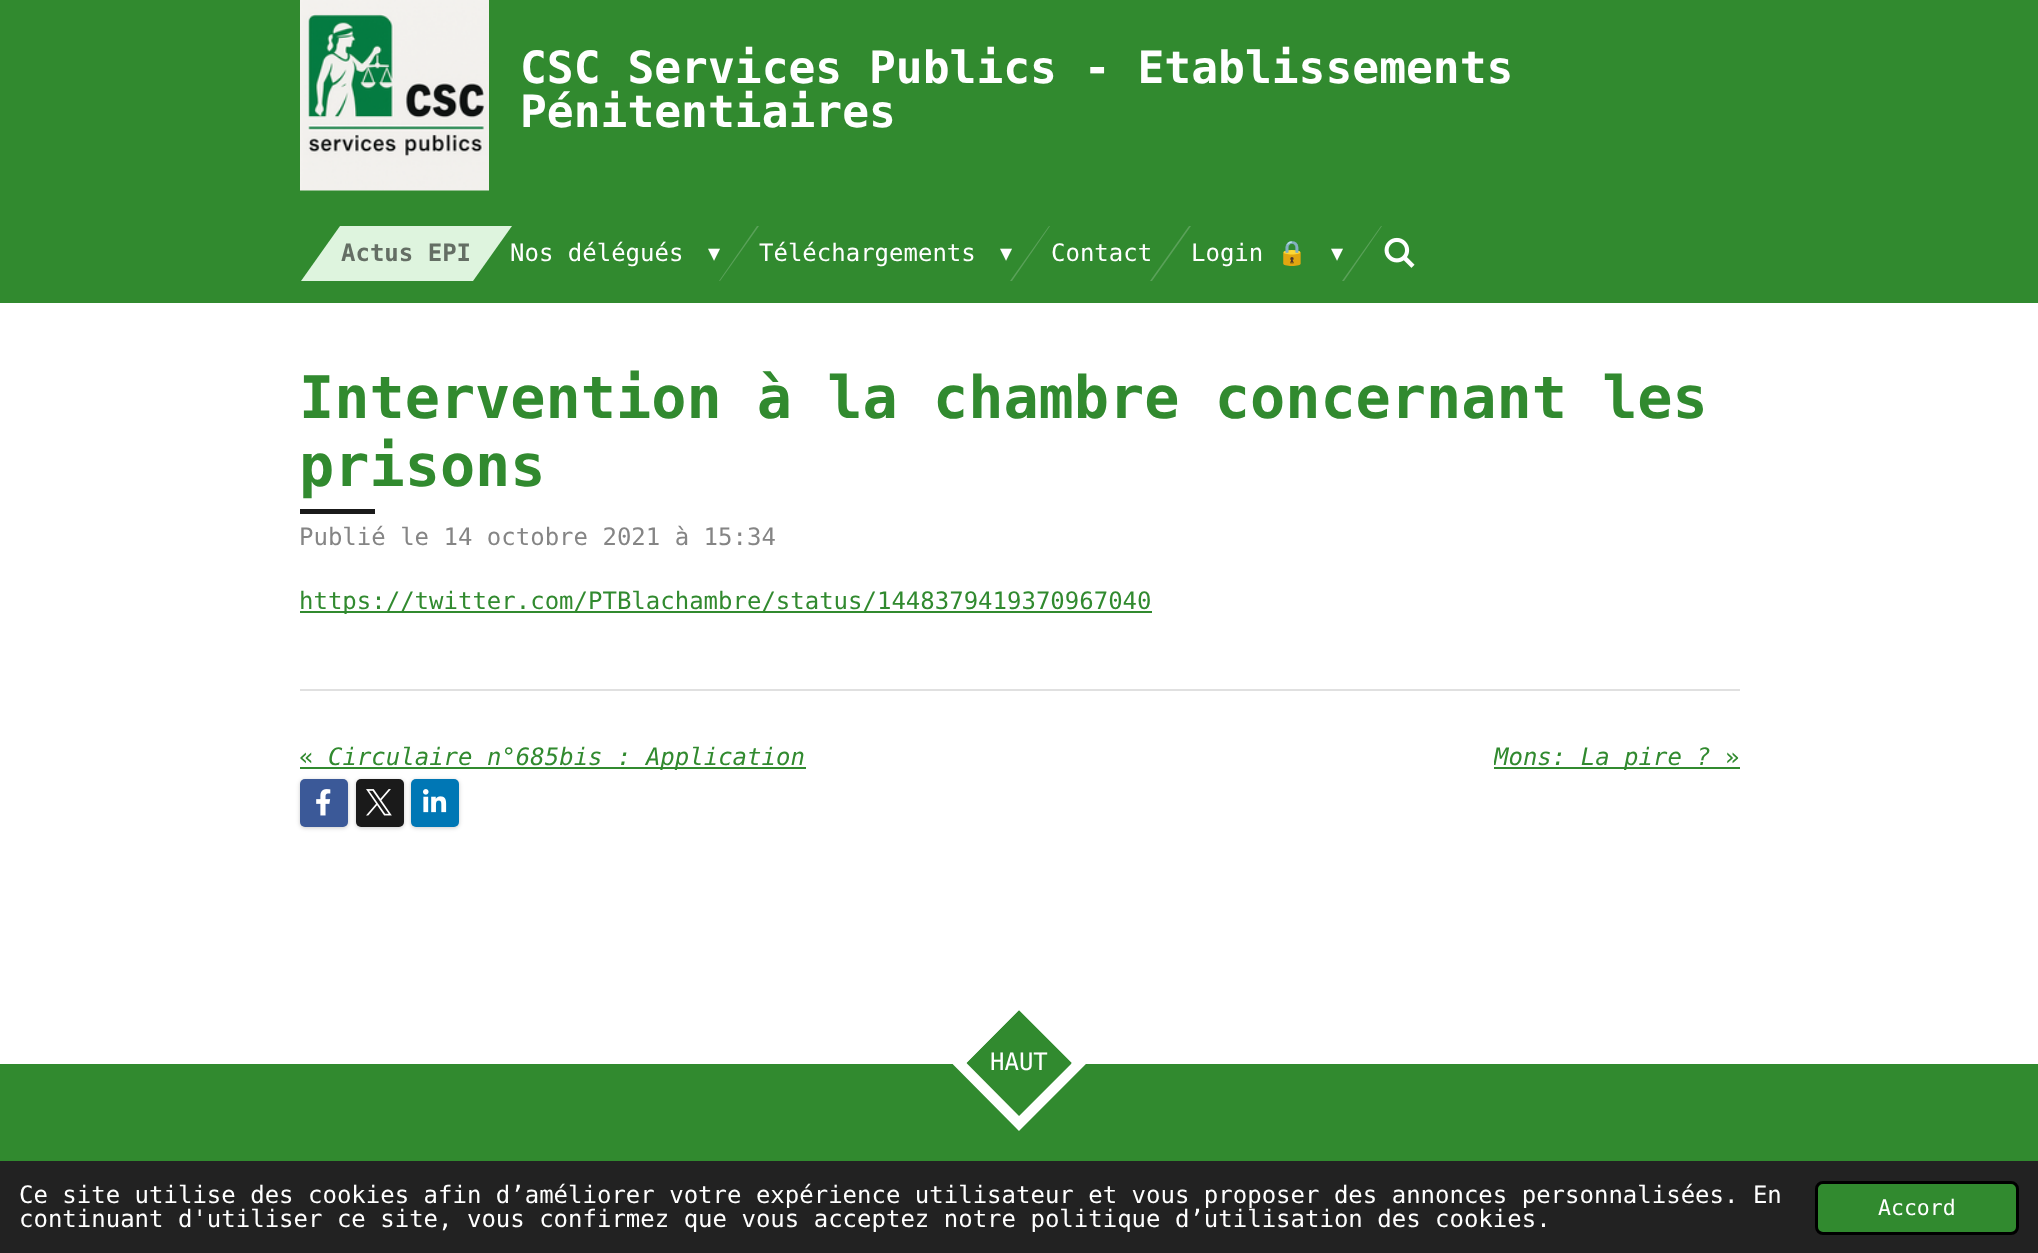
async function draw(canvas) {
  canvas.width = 2038
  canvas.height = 1253
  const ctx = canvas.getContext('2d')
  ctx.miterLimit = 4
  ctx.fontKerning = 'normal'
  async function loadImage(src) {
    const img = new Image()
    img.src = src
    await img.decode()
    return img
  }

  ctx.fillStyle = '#fff'
  ctx.fillRect(0, 0, 2038, 1253)
  ctx.fillStyle = '#318a2f'
  ctx.fillRect(0, 0, 2038, 303)
  ctx.drawImage(await loadImage('image0.png'), 300, 0, 189, 191)
  ctx.font = 'bold 44.6px DejaVu Sans Mono'
  ctx.fillStyle = '#fff'
  ctx.fillText('CSC Services Publics - Etablissements', 520, 83)
  ctx.fillText('Pénitentiaires', 520, 127)
  ctx.font = '24px DejaVu Sans Mono'
  ctx.fillText('Nos délégués', 510, 261)
  ctx.fillStyle = '#def4de'
  ctx.beginPath()
  ctx.moveTo(340, 226)
  ctx.lineTo(512, 226)
  ctx.lineTo(473, 281)
  ctx.lineTo(301, 281)
  ctx.closePath()
  ctx.fill()
  ctx.font = 'bold 24px DejaVu Sans Mono'
  ctx.fillStyle = '#646e64'
  ctx.fillText('Actus EPI', 341, 261)
  ctx.fillStyle = '#5aa159'
  ctx.beginPath()
  ctx.moveTo(757, 226)
  ctx.lineTo(759, 226)
  ctx.lineTo(720, 281)
  ctx.lineTo(719, 281)
  ctx.closePath()
  ctx.fill()
  ctx.font = '24px DejaVu Sans'
  ctx.fillStyle = '#fff'
  ctx.fillText('▾', 708, 261)
  ctx.font = '24px DejaVu Sans Mono'
  ctx.fillText('Téléchargements', 759, 261)
  ctx.fillStyle = '#5aa159'
  ctx.beginPath()
  ctx.moveTo(1049, 226)
  ctx.lineTo(1050, 226)
  ctx.lineTo(1012, 281)
  ctx.lineTo(1010, 281)
  ctx.closePath()
  ctx.fill()
  ctx.font = '24px DejaVu Sans'
  ctx.fillStyle = '#fff'
  ctx.fillText('▾', 1000, 261)
  ctx.font = '24px DejaVu Sans Mono'
  ctx.fillText('Contact', 1051, 261)
  ctx.fillStyle = '#5aa159'
  ctx.beginPath()
  ctx.moveTo(1189, 226)
  ctx.lineTo(1191, 226)
  ctx.lineTo(1152, 281)
  ctx.lineTo(1150, 281)
  ctx.closePath()
  ctx.fill()
  ctx.fillStyle = '#fff'
  ctx.fillText('Login', 1191, 261)
  ctx.font = '24px Noto Color Emoji'
  ctx.fillText('🔒', 1277, 261)
  ctx.fillStyle = '#5aa159'
  ctx.beginPath()
  ctx.moveTo(1381, 226)
  ctx.lineTo(1382, 226)
  ctx.lineTo(1344, 281)
  ctx.lineTo(1342, 281)
  ctx.closePath()
  ctx.fill()
  ctx.font = '24px DejaVu Sans'
  ctx.fillStyle = '#fff'
  ctx.fillText('▾', 1331, 261)
  ctx.drawImage(await loadImage('image1.png'), 1384, 237, 31, 31)
  ctx.font = 'bold 58.5px DejaVu Sans Mono'
  ctx.fillStyle = '#318a2f'
  ctx.fillText('Intervention à la chambre concernant les', 299, 418)
  ctx.fillText('prisons', 299, 486)
  ctx.fillStyle = '#1a1a1a'
  ctx.fillRect(300, 509, 75, 5)
  ctx.font = '24px DejaVu Sans Mono'
  ctx.fillStyle = '#858585'
  ctx.fillText('Publié le 14 octobre 2021 à 15:34', 299, 545)
  ctx.fillStyle = '#318a2f'
  ctx.fillRect(300, 611, 852, 2)
  ctx.fillText('https://twitter.com/PTBlachambre/status/1448379419370967040', 299, 609)
  ctx.fillStyle = '#e0e0e0'
  ctx.fillRect(300, 689, 1440, 2)
  ctx.fillStyle = '#318a2f'
  ctx.fillText('«', 299, 765)
  ctx.fillRect(300, 767, 506, 2)
  ctx.font = 'italic 24px DejaVu Sans Mono'
  ctx.fillText('Circulaire n°685bis : Application', 328, 765)
  ctx.fillRect(1494, 767, 246, 2)
  ctx.save()
  ctx.beginPath()
  ctx.rect(1494, 738, 216, 41)
  ctx.clip()
  ctx.fillText('Mons: La pire ?', 1494, 765)
  ctx.restore()
  ctx.font = '24px DejaVu Sans Mono'
  ctx.fillText('»', 1725, 765)
  ctx.fillStyle = '#00000033'
  ctx.filter = 'blur(2px)'
  ctx.beginPath()
  ctx.roundRect(300, 780, 48, 48, 5)
  ctx.fill()
  ctx.filter = 'none'
  ctx.fillStyle = '#3b5998'
  ctx.beginPath()
  ctx.roundRect(300, 779, 48, 48, 5)
  ctx.fill()
  ctx.drawImage(await loadImage('image2.png'), 316, 789, 15, 27)
  ctx.fillStyle = '#00000033'
  ctx.filter = 'blur(2px)'
  ctx.beginPath()
  ctx.roundRect(356, 780, 48, 48, 5)
  ctx.fill()
  ctx.filter = 'none'
  ctx.fillStyle = '#1a1a1a'
  ctx.beginPath()
  ctx.roundRect(356, 779, 48, 48, 5)
  ctx.fill()
  ctx.drawImage(await loadImage('image3.png'), 366, 789, 26, 27)
  ctx.fillStyle = '#00000033'
  ctx.filter = 'blur(2px)'
  ctx.beginPath()
  ctx.roundRect(411, 780, 48, 48, 5)
  ctx.fill()
  ctx.filter = 'none'
  ctx.fillStyle = '#0077b5'
  ctx.beginPath()
  ctx.roundRect(411, 779, 48, 48, 5)
  ctx.fill()
  ctx.drawImage(await loadImage('image4.png'), 423, 789, 24, 24)
  ctx.fillStyle = '#318a2f'
  ctx.fillRect(0, 1064, 2038, 97)
  ctx.beginPath()
  ctx.moveTo(1019, 1010)
  ctx.lineTo(1072, 1063)
  ctx.lineTo(1019, 1116)
  ctx.lineTo(966, 1063)
  ctx.closePath()
  ctx.fill()
  ctx.beginPath()
  ctx.moveTo(1019, 1002.5)
  ctx.lineTo(1079.5, 1063)
  ctx.lineTo(1019, 1123.5)
  ctx.lineTo(959, 1063)
  ctx.closePath()
  ctx.strokeStyle = '#fff'
  ctx.lineWidth = 10.5
  ctx.stroke()
  ctx.fillStyle = '#fff'
  ctx.fillText('HAUT', 990, 1070)
  ctx.fillStyle = '#222'
  ctx.fillRect(0, 1161, 2038, 92)
  ctx.fillStyle = '#fff'
  ctx.fillText('Ce site utilise des cookies afin d’améliorer votre expérience utilisateur et vous proposer des annonces personnalisées. En', 19, 1203)
  ctx.fillText('continuant d\'utiliser ce site, vous confirmez que vous acceptez notre politique d’utilisation des cookies.', 19, 1227)
  ctx.fillStyle = '#318a2f'
  ctx.beginPath()
  ctx.roundRect(1816.5, 1182.5, 201, 51, 6.5)
  ctx.fill()
  ctx.strokeStyle = '#000'
  ctx.lineWidth = 3
  ctx.stroke()
  ctx.font = '21.5px DejaVu Sans Mono'
  ctx.fillStyle = '#fff'
  ctx.fillText('Accord', 1878, 1215)
}

draw(document.querySelector('canvas'))
